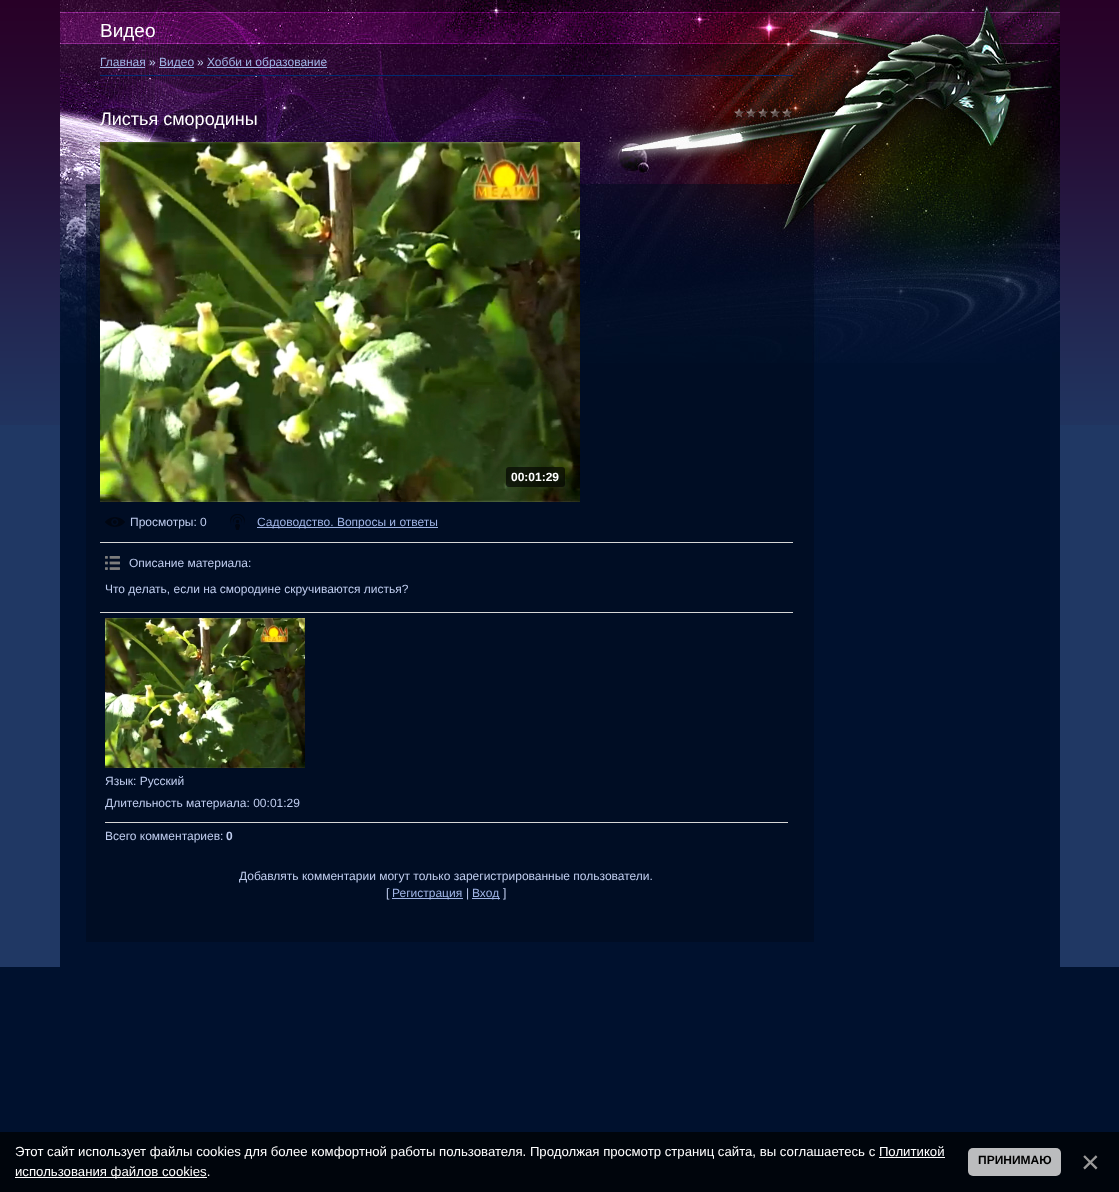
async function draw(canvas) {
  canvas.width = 1119
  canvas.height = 1192
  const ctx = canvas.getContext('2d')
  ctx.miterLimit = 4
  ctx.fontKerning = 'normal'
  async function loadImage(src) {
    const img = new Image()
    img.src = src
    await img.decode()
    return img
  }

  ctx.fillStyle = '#00112e'
  ctx.fillRect(0, 0, 1119, 1192)
  ctx.fillStyle = '#203864'
  ctx.fillRect(0, 425, 1119, 542)
  ctx.drawImage(await loadImage('image0.png'), 0, 0, 1119, 425)
  ctx.drawImage(await loadImage('image1.png'), 60, 363, 1000, 579)
  ctx.fillStyle = '#00112e'
  ctx.fillRect(60, 942, 1000, 25)
  ctx.drawImage(await loadImage('image2.png'), 60, 0, 1000, 363)
  ctx.font = '19px Liberation Sans'
  ctx.fillStyle = '#fff'
  ctx.fillText('Видео', 100, 37)
  ctx.font = '12px Liberation Sans'
  ctx.fillStyle = '#9fb4e5'
  ctx.fillText('Главная', 100, 66)
  ctx.fillRect(100, 67, 45, 1)
  ctx.fillStyle = '#bfcdef'
  ctx.fillText('»', 149, 66)
  ctx.fillStyle = '#9fb4e5'
  ctx.fillRect(159, 67, 35, 1)
  ctx.fillText('Видео', 159, 66)
  ctx.fillStyle = '#bfcdef'
  ctx.fillText('»', 197, 66)
  ctx.fillStyle = '#9fb4e5'
  ctx.fillRect(207, 67, 120, 1)
  ctx.fillText('Хобби и образование', 207, 66)
  ctx.fillStyle = '#002a71'
  ctx.fillRect(100, 75, 693, 1)
  ctx.font = '18px Liberation Sans'
  ctx.fillStyle = '#fff'
  ctx.fillText('Листья смородины', 100, 125)
  ctx.drawImage(await loadImage('image3.png'), 734, 108, 59, 10)
  ctx.drawImage(await loadImage('image4.png'), 100, 142, 480, 360)
  ctx.fillStyle = '#000000a1'
  ctx.beginPath()
  ctx.roundRect(506, 467, 59, 20, 3)
  ctx.fill()
  ctx.font = 'bold 12px Liberation Sans'
  ctx.fillStyle = '#fff'
  ctx.fillText('00:01:29', 511, 481)
  ctx.drawImage(await loadImage('image5.png'), 105, 517, 20, 10)
  ctx.font = '12px Liberation Sans'
  ctx.fillStyle = '#bfcdef'
  ctx.fillText('Просмотры: 0', 130, 526)
  ctx.drawImage(await loadImage('image6.png'), 230, 514, 15, 16)
  ctx.fillStyle = '#9fb4e5'
  ctx.fillRect(257, 527, 181, 1)
  ctx.fillText('Садоводство. Вопросы и ответы', 257, 526)
  ctx.fillStyle = '#d6d6d6'
  ctx.fillRect(100, 542, 693, 1)
  ctx.drawImage(await loadImage('image7.png'), 105, 556, 15, 14)
  ctx.fillStyle = '#bfcdef'
  ctx.fillText('Описание материала:', 129, 567)
  ctx.fillText('Что делать, если на смородине скручиваются листья?', 105, 593)
  ctx.fillStyle = '#d6d6d6'
  ctx.fillRect(100, 612, 693, 1)
  ctx.drawImage(await loadImage('image8.png'), 105, 618, 200, 150)
  ctx.fillStyle = '#bfcdef'
  ctx.fillText('Язык: Русский', 105, 785)
  ctx.fillText('Длительность материала: 00:01:29', 105, 807)
  ctx.fillStyle = '#d6d6d6'
  ctx.fillRect(105, 822, 683, 1)
  ctx.fillStyle = '#bfcdef'
  ctx.fillText('Всего комментариев:', 105, 840)
  ctx.font = 'bold 12px Liberation Sans'
  ctx.fillText('0', 226, 840)
  ctx.font = '12px Liberation Sans'
  ctx.fillText('Добавлять комментарии могут только зарегистрированные пользователи.', 239, 880)
  ctx.fillText('[', 386, 897)
  ctx.fillStyle = '#9fb4e5'
  ctx.fillRect(392, 898, 71, 1)
  ctx.fillText('Регистрация', 392, 897)
  ctx.fillStyle = '#bfcdef'
  ctx.fillText('|', 466, 897)
  ctx.fillStyle = '#9fb4e5'
  ctx.fillRect(472, 898, 28, 1)
  ctx.fillText('Вход', 472, 897)
  ctx.fillStyle = '#bfcdef'
  ctx.fillText(']', 503, 897)
  ctx.fillStyle = '#00050c'
  ctx.fillRect(0, 1132, 1119, 60)
  ctx.font = '13.2px Liberation Sans'
  ctx.fillStyle = '#fff'
  ctx.fillText('Этот сайт использует файлы cookies для более комфортной работы пользователя. Продолжая просмотр страниц сайта, вы соглашаетесь с Политикой', 15, 1156)
  ctx.fillRect(15, 1177, 192, 1)
  ctx.fillText('использования файлов cookies.', 15, 1176)
  ctx.fillRect(879, 1157, 66, 1)
  ctx.fillStyle = '#bbbcbe'
  ctx.beginPath()
  ctx.roundRect(968, 1148, 93, 28, 5)
  ctx.fill()
  ctx.font = 'bold 12px Liberation Sans'
  ctx.fillStyle = '#000'
  ctx.fillText('ПРИНИМАЮ', 978, 1164)
  ctx.font = '32px Liberation Sans'
  ctx.fillStyle = '#999'
  ctx.fillText('×', 1081, 1173)
}

draw(document.querySelector('canvas'))
